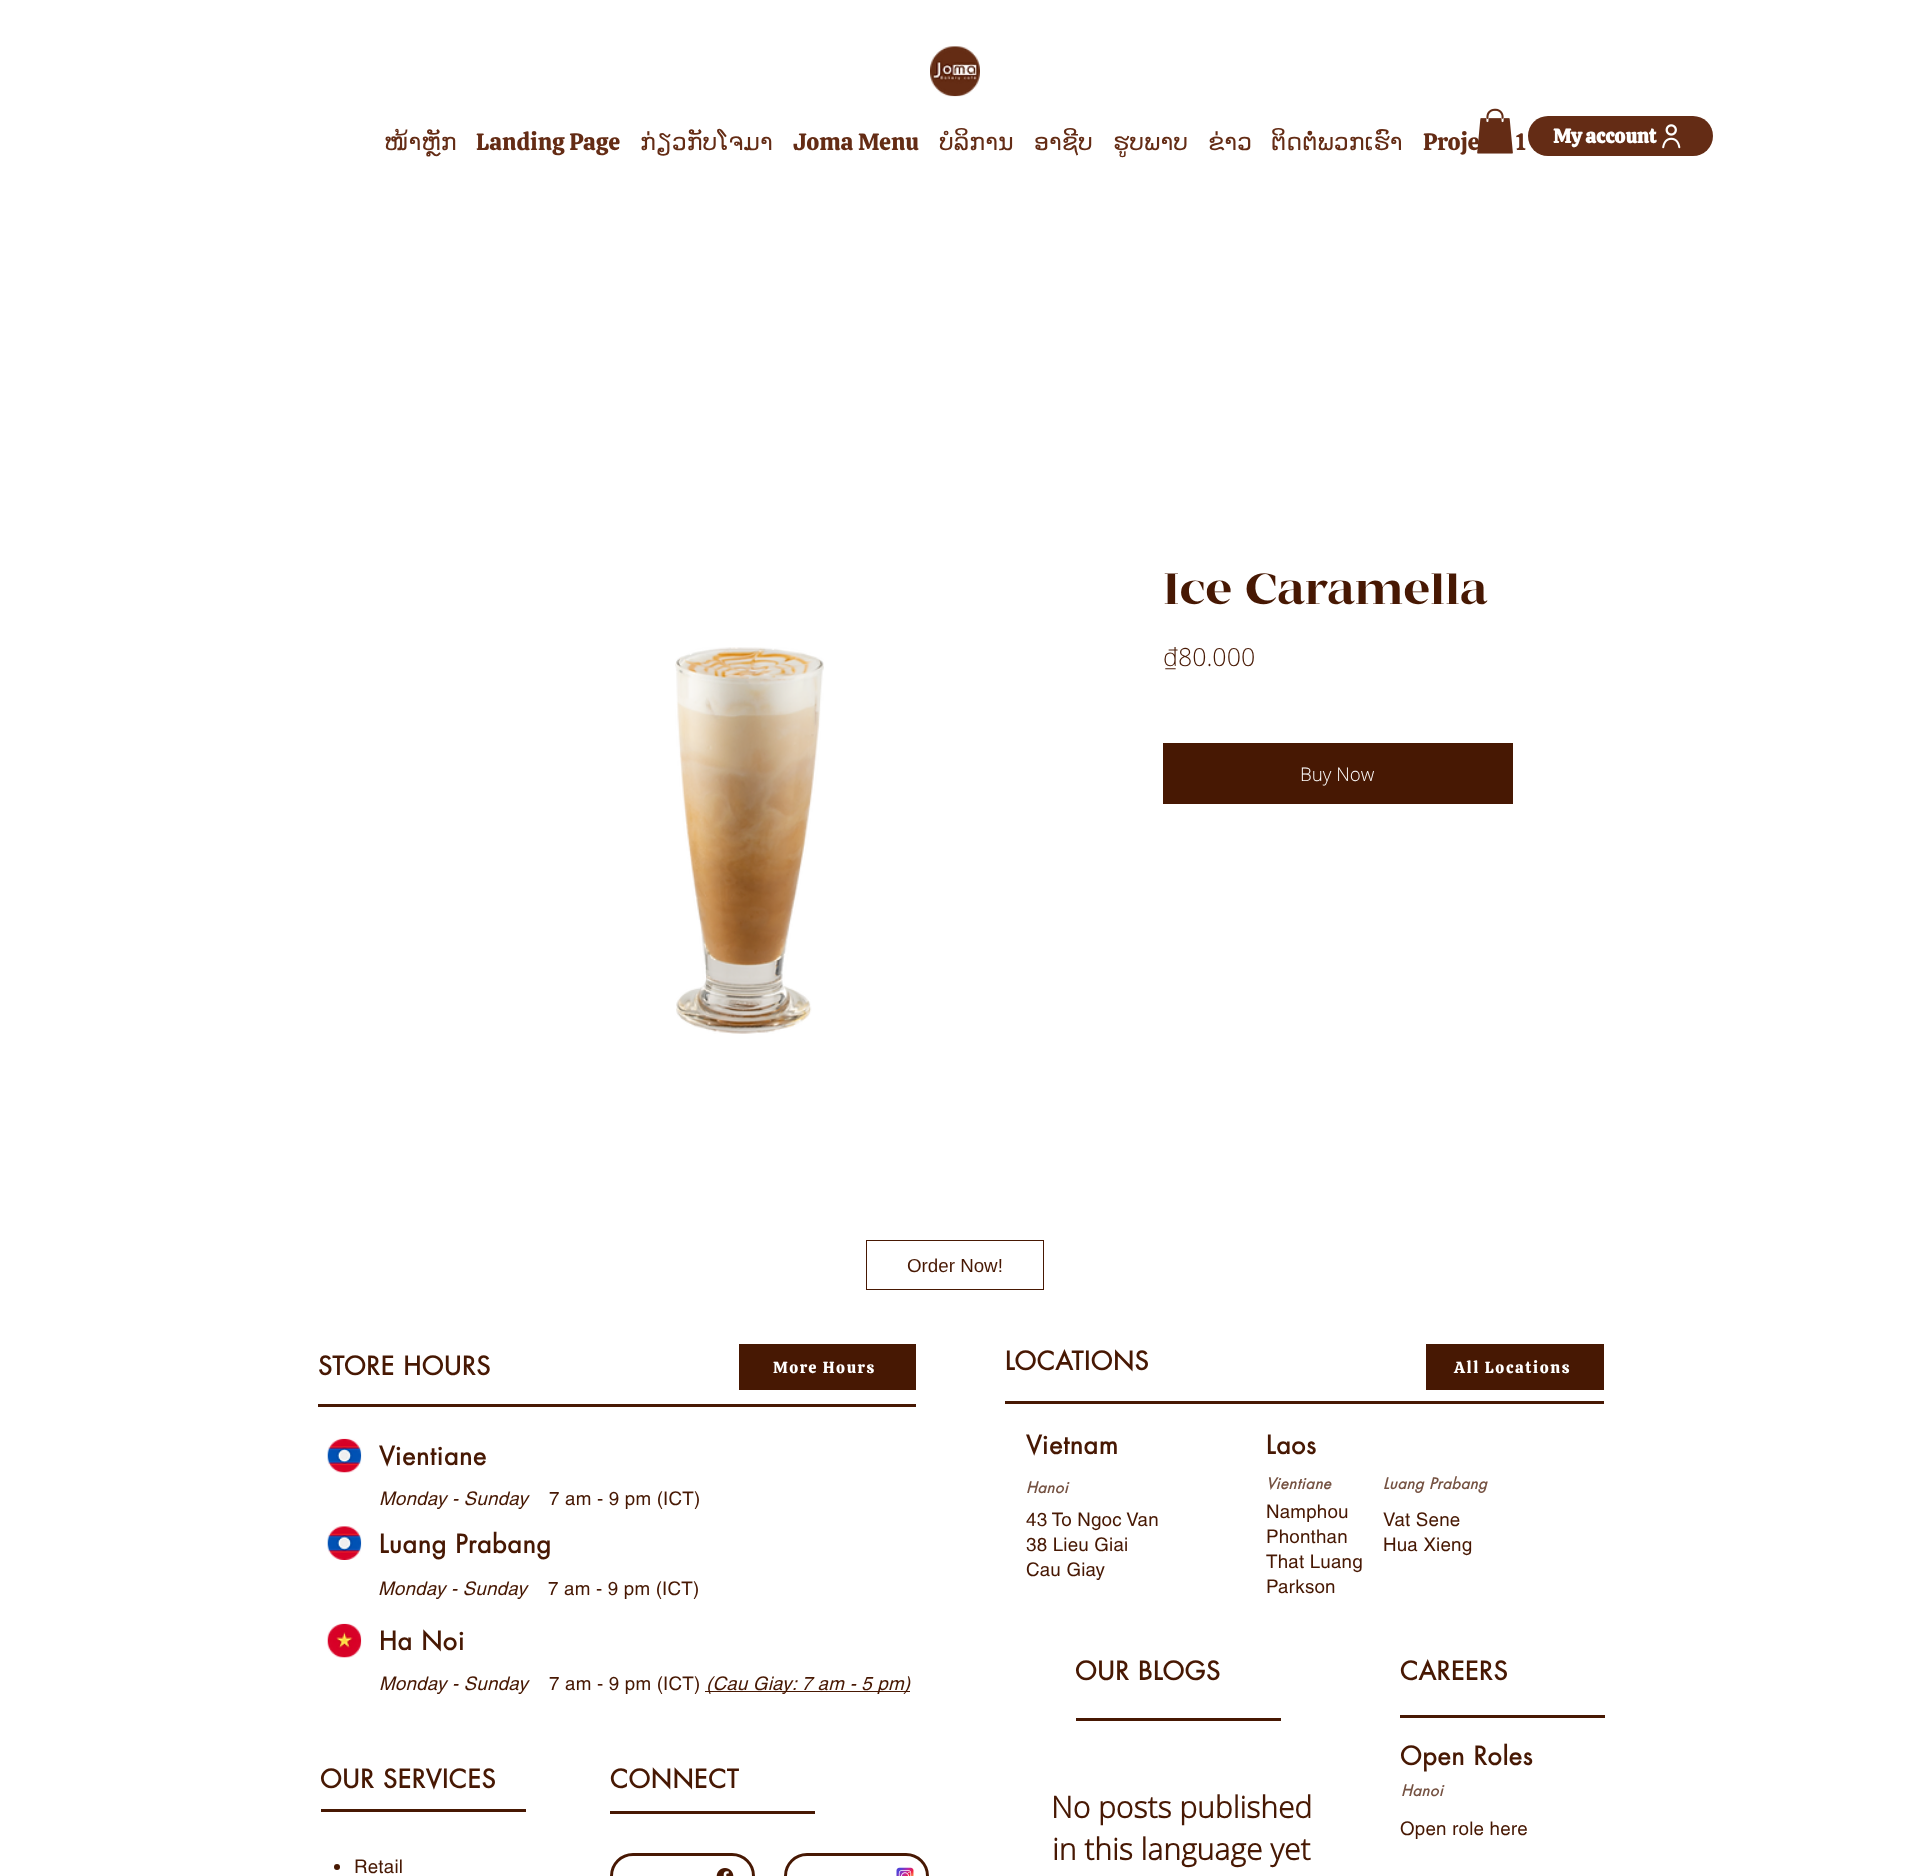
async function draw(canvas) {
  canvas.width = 1909
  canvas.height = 1876
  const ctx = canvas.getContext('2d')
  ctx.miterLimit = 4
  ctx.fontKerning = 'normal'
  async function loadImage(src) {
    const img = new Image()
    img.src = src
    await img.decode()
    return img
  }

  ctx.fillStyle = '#fff'
  ctx.fillRect(0, 0, 1909, 1876)
  ctx.drawImage(await loadImage('image0.png'), 930, 46, 50, 51)
  ctx.font = '23.75px Calistoga'
  ctx.fillStyle = '#642c15'
  ctx.fillText('Proje', 1423, 150)
  ctx.drawImage(await loadImage('image1.png'), 1477, 108, 36, 46)
  ctx.font = '23.75px DejaVu Sans'
  ctx.fillText('ໜ້າຫຼັກ', 384, 150)
  ctx.font = '23.75px Calistoga'
  ctx.fillText('Landing Page', 476, 150)
  ctx.font = '23.75px DejaVu Sans'
  ctx.fillText('ກ່ຽວກັບໂຈມາ', 640, 150)
  ctx.font = '23.75px Calistoga'
  ctx.fillText('Joma Menu', 793, 150)
  ctx.font = '23.75px DejaVu Sans'
  ctx.fillText('ບໍລິການ', 939, 150)
  ctx.fillText('ອາຊີບ', 1034, 150)
  ctx.fillText('ຮູບພາບ', 1113, 150)
  ctx.fillText('ຂ່າວ', 1208, 150)
  ctx.fillText('ຕິດຕໍ່ພວກເຮົາ', 1271, 150)
  ctx.font = '23.75px Calistoga'
  ctx.fillText('1', 1515, 150)
  ctx.beginPath()
  ctx.roundRect(1528, 116, 185, 40, 20)
  ctx.fill()
  ctx.font = 'bold 20px Calistoga'
  ctx.fillStyle = '#fff'
  ctx.fillText('My account', 1553, 143)
  ctx.drawImage(await loadImage('image2.png'), 1662, 124, 19, 25)
  ctx.drawImage(await loadImage('image3.png'), 675, 647, 149, 387)
  ctx.font = '43.75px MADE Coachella'
  ctx.fillStyle = '#471803'
  ctx.fillText('Ice Caramella', 1163, 604)
  ctx.font = '300 25px Open Sans'
  ctx.fillText('₫80.000', 1163, 666)
  ctx.fillRect(1163, 743, 350, 61)
  ctx.font = '300 18.75px Open Sans'
  ctx.fillStyle = '#fff'
  ctx.fillText('Buy Now', 1300, 781)
  ctx.strokeStyle = '#471803'
  ctx.strokeRect(866.5, 1240.5, 177, 49)
  ctx.font = '18.75px Liberation Sans'
  ctx.fillStyle = '#471803'
  ctx.fillText('Order Now!', 907, 1272)
  ctx.letterSpacing = '0.75px'
  ctx.font = 'bold 25px futura'
  ctx.fillText('STORE HOURS', 318, 1375)
  ctx.fillRect(739, 1344, 177, 46)
  ctx.letterSpacing = '1.6px'
  ctx.font = '16.25px Calistoga'
  ctx.fillStyle = '#fff'
  ctx.fillText('More Hours', 773, 1373)
  ctx.fillStyle = '#471803'
  ctx.fillRect(318, 1404, 598, 3)
  ctx.drawImage(await loadImage('image4.png'), 327, 1438, 35, 35)
  ctx.letterSpacing = '0.75px'
  ctx.font = 'bold 25px futura'
  ctx.fillText('Vientiane', 379, 1465)
  ctx.letterSpacing = '0.2px'
  ctx.font = 'italic 18.75px helvetica'
  ctx.fillText('Monday - Sunday', 379, 1505)
  ctx.font = '18.75px helvetica'
  ctx.fillText('7 am - 9 pm (ICT)', 549, 1505)
  ctx.drawImage(await loadImage('image5.png'), 327, 1526, 35, 34)
  ctx.letterSpacing = '0.75px'
  ctx.font = 'bold 25px futura'
  ctx.fillText('Luang Prabang', 379, 1553)
  ctx.letterSpacing = '0.2px'
  ctx.font = 'italic 18.75px helvetica'
  ctx.fillText('Monday - Sunday', 378, 1595)
  ctx.font = '18.75px helvetica'
  ctx.fillText('7 am - 9 pm (ICT)', 548, 1595)
  ctx.drawImage(await loadImage('image6.png'), 327, 1623, 35, 35)
  ctx.letterSpacing = '0.75px'
  ctx.font = 'bold 25px futura'
  ctx.fillText('Ha Noi', 379, 1650)
  ctx.letterSpacing = '0.2px'
  ctx.font = 'italic 18.75px helvetica'
  ctx.fillText('Monday - Sunday', 379, 1690)
  ctx.font = '18.75px helvetica'
  ctx.fillText('7 am - 9 pm (ICT)', 549, 1690)
  ctx.fillRect(705, 1691, 205, 1)
  ctx.font = 'italic 18.75px helvetica'
  ctx.fillText('(Cau Giay: 7 am - 5 pm)', 706, 1690)
  ctx.letterSpacing = '0.75px'
  ctx.font = 'bold 25px futura'
  ctx.fillText('LOCATIONS', 1005, 1370)
  ctx.fillRect(1426, 1344, 178, 46)
  ctx.letterSpacing = '1.6px'
  ctx.font = '16.25px Calistoga'
  ctx.fillStyle = '#fff'
  ctx.fillText('All Locations', 1454, 1373)
  ctx.fillStyle = '#471803'
  ctx.fillRect(1005, 1401, 599, 3)
  ctx.letterSpacing = '0.75px'
  ctx.font = 'bold 25px futura'
  ctx.fillText('Vietnam', 1026, 1454)
  ctx.fillText('Laos', 1266, 1454)
  ctx.letterSpacing = '0.5px'
  ctx.font = 'italic bold 15px futura'
  ctx.fillStyle = '#755242'
  ctx.fillText('Hanoi', 1026, 1493)
  ctx.fillText('Vientiane', 1266, 1489)
  ctx.fillText('Luang Prabang', 1383, 1489)
  ctx.letterSpacing = '0.2px'
  ctx.font = '18.75px helvetica'
  ctx.fillStyle = '#471803'
  ctx.fillText('43 To Ngoc Van', 1026, 1526)
  ctx.fillText('38 Lieu Giai', 1026, 1551)
  ctx.fillText('Cau Giay', 1026, 1576)
  ctx.fillText('Namphou', 1266, 1518)
  ctx.fillText('Phonthan', 1266, 1543)
  ctx.fillText('That Luang', 1266, 1568)
  ctx.fillText('Parkson', 1266, 1593)
  ctx.fillText('Vat Sene', 1383, 1526)
  ctx.fillText('Hua Xieng', 1383, 1551)
  ctx.letterSpacing = '0.75px'
  ctx.font = 'bold 25px futura'
  ctx.fillText('OUR BLOGS', 1075, 1680)
  ctx.fillText('CAREERS', 1400, 1680)
  ctx.fillRect(1400, 1715, 205, 3)
  ctx.fillRect(1076, 1718, 205, 3)
  ctx.fillText('Open Roles', 1400, 1765)
  ctx.fillText('OUR SERVICES', 320, 1788)
  ctx.fillText('CONNECT', 610, 1788)
  ctx.letterSpacing = '0.5px'
  ctx.font = 'italic bold 15px futura'
  ctx.fillStyle = '#755242'
  ctx.fillText('Hanoi', 1401, 1796)
  ctx.fillStyle = '#471803'
  ctx.fillRect(321, 1809, 205, 3)
  ctx.letterSpacing = '0px'
  ctx.font = 'bold 30px Open Sans'
  ctx.fillText('No posts published', 1051, 1818)
  ctx.fillText('in this language yet', 1052, 1860)
  ctx.fillRect(610, 1811, 205, 3)
  ctx.letterSpacing = '0.2px'
  ctx.font = '18.75px helvetica'
  ctx.fillText('Open role here', 1400, 1835)
  ctx.beginPath()
  ctx.arc(337, 1867, 3, 0, 2 * Math.PI)
  ctx.fill()
  ctx.fillText('Retail', 354, 1873)
  ctx.beginPath()
  ctx.roundRect(611.5, 1854.5, 142, 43, 21.5)
  ctx.lineWidth = 3
  ctx.stroke()
  ctx.drawImage(await loadImage('image7.png'), 716, 1868, 18, 8)
  ctx.beginPath()
  ctx.roundRect(785.5, 1854.5, 142, 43, 21.5)
  ctx.stroke()
  ctx.drawImage(await loadImage('image8.png'), 896, 1867, 18, 9)
}

draw(document.querySelector('canvas'))
